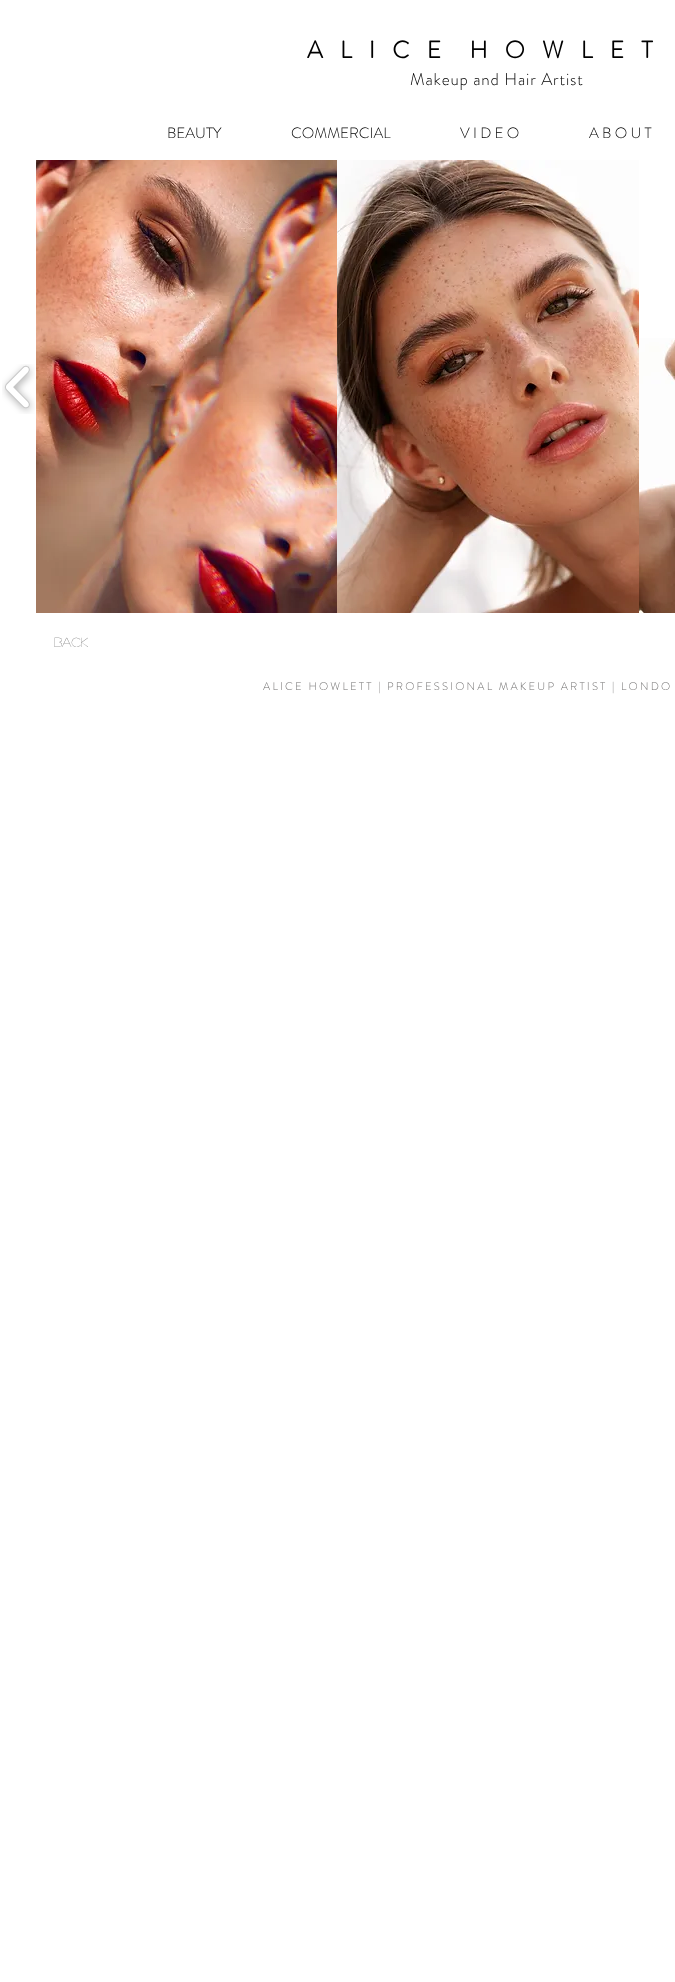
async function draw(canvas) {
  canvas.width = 675
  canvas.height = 1982
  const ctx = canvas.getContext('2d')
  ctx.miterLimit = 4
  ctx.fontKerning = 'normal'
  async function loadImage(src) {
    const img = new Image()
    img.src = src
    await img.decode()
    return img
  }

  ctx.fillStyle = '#fff'
  ctx.fillRect(0, 0, 675, 1982)
  ctx.letterSpacing = '6px'
  ctx.font = 'bold 24px "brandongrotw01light"'
  ctx.fillStyle = '#000'
  ctx.fillText('A L I C E  H O W L E T', 307, 58)
  ctx.letterSpacing = '0.85px'
  ctx.font = '300 17px "brandongrotw01light"'
  ctx.fillText('Makeup and Hair Artist', 410, 85)
  ctx.letterSpacing = '0px'
  ctx.font = '300 15px "brandongrotw01light"'
  ctx.fillText('BEAUTY', 167, 138)
  ctx.fillText('COMMERCIAL', 291, 138)
  ctx.fillText('V I D E O', 460, 138)
  ctx.fillText('A B O U T', 589, 138)
  ctx.drawImage(await loadImage('image0.png'), 2, 364, 33, 50)
  ctx.drawImage(await loadImage('image1.png'), 36, 160, 301, 453)
  ctx.drawImage(await loadImage('image2.png'), 337, 160, 302, 453)
  ctx.drawImage(await loadImage('image3.png'), 639, 338, 36, 275)
  ctx.font = '13px "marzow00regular"'
  ctx.fillStyle = '#4a4a4a'
  ctx.fillText('BACK', 54, 647)
  ctx.letterSpacing = '2.2px'
  ctx.font = '300 11px "brandongrotw01light"'
  ctx.fillStyle = '#717070'
  ctx.fillText('ALICE HOWLETT | PROFESSIONAL MAKEUP ARTIST | LONDO', 263, 690)
}

draw(document.querySelector('canvas'))
